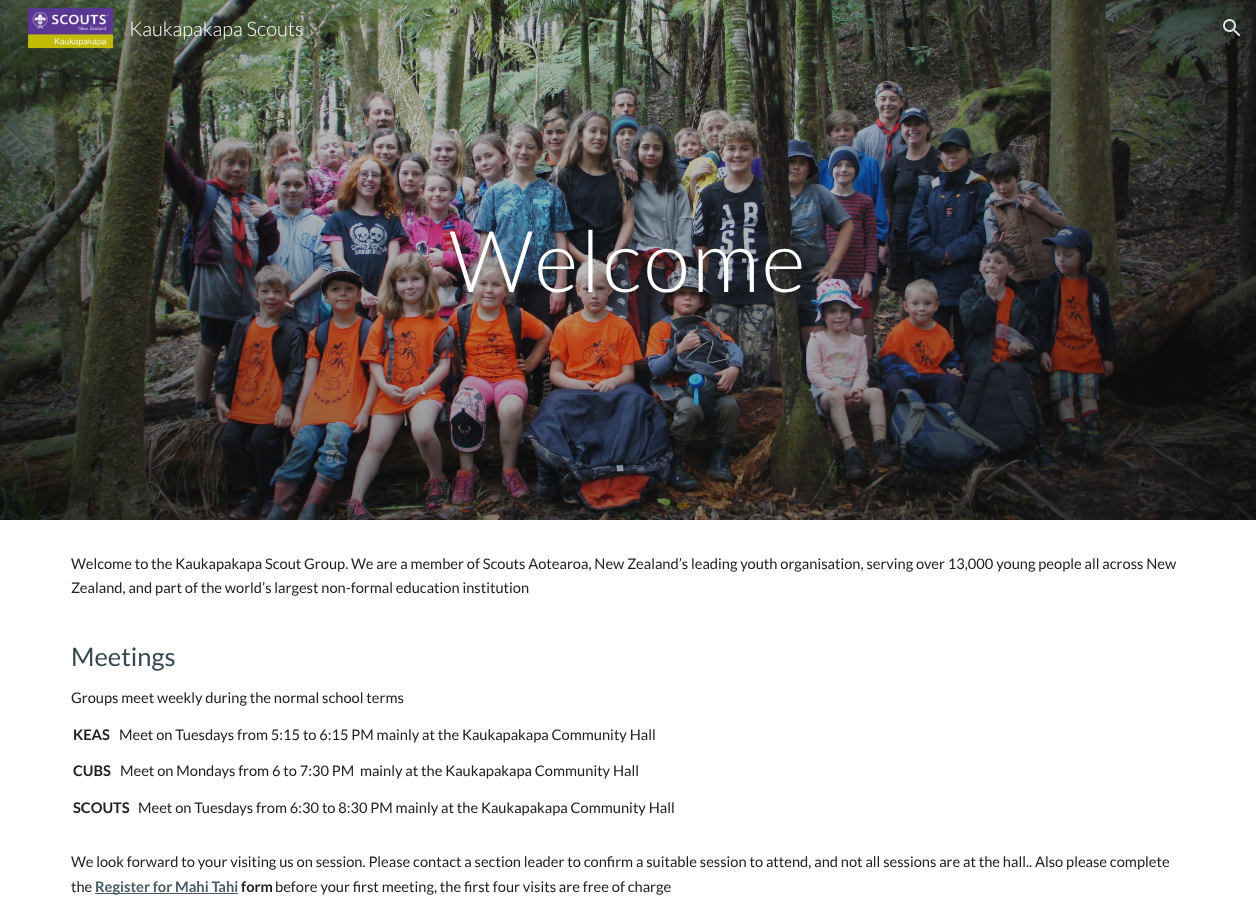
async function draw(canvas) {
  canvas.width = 1256
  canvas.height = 923
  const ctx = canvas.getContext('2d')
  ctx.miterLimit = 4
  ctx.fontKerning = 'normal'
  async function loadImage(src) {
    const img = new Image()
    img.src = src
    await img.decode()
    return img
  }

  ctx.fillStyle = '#fff'
  ctx.fillRect(0, 0, 1256, 923)
  ctx.drawImage(await loadImage('image2.png'), 0, 0, 1256, 520)
  ctx.drawImage(await loadImage('image0.png'), 28, 8, 86, 41)
  ctx.font = '300 20px Lato'
  ctx.fillText('Kaukapakapa Scouts', 129, 36)
  ctx.drawImage(await loadImage('image1.png'), 1223, 19, 18, 18)
  ctx.letterSpacing = '2px'
  ctx.font = '300 85.5px Lato'
  ctx.fillText('Welcome', 449, 292)
  ctx.letterSpacing = '0px'
  ctx.font = '14.67px Lato'
  ctx.fillStyle = '#212121'
  ctx.fillText('Welcome to the Kaukapakapa Scout Group. We are a member of Scouts Aotearoa, New Zealand’s leading youth organisation, serving over 13,000 young people all across New', 71, 569)
  ctx.fillText('Zealand, and part of the world’s largest non-formal education institution', 71, 593)
  ctx.font = '25.5px Lato'
  ctx.fillStyle = '#37474f'
  ctx.fillText('Meetings', 71, 666)
  ctx.font = '14.67px Lato'
  ctx.fillStyle = '#212121'
  ctx.fillText('Groups meet weekly during the normal school terms', 71, 703)
  ctx.font = 'bold 14.67px Lato'
  ctx.fillText('KEAS', 73, 740)
  ctx.font = '14.67px Lato'
  ctx.fillText('Meet on Tuesdays from 5:15 to 6:15 PM mainly at the Kaukapakapa Community Hall', 119, 740)
  ctx.font = 'bold 14.67px Lato'
  ctx.fillText('CUBS', 73, 776)
  ctx.font = '14.67px Lato'
  ctx.fillText('Meet on Mondays from 6 to 7:30 PM  mainly at the Kaukapakapa Community Hall', 120, 776)
  ctx.font = 'bold 14.67px Lato'
  ctx.fillText('SCOUTS', 73, 813)
  ctx.font = '14.67px Lato'
  ctx.fillText('Meet on Tuesdays from 6:30 to 8:30 PM mainly at the Kaukapakapa Community Hall', 138, 813)
  ctx.fillText('We look forward to your visiting us on session. Please contact a section leader to confirm a suitable session to attend, and not all sessions are at the hall.. Also please complete', 71, 867)
  ctx.fillText('the', 71, 892)
  ctx.fillStyle = '#475c66'
  ctx.fillRect(95, 893, 143, 1)
  ctx.font = 'bold 14.67px Lato'
  ctx.fillText('Register for Mahi Tahi', 95, 892)
  ctx.fillStyle = '#212121'
  ctx.fillText('form', 241, 892)
  ctx.font = '14.67px Lato'
  ctx.fillText('before your first meeting, the first four visits are free of charge', 275, 892)
  ctx.font = '500 14px Google Sans'
  ctx.fillStyle = '#768165'
  ctx.fillText('n', 458, 42)
  ctx.fillText('t', 494, 42)
  ctx.fillText('t', 516, 42)
}

draw(document.querySelector('canvas'))
